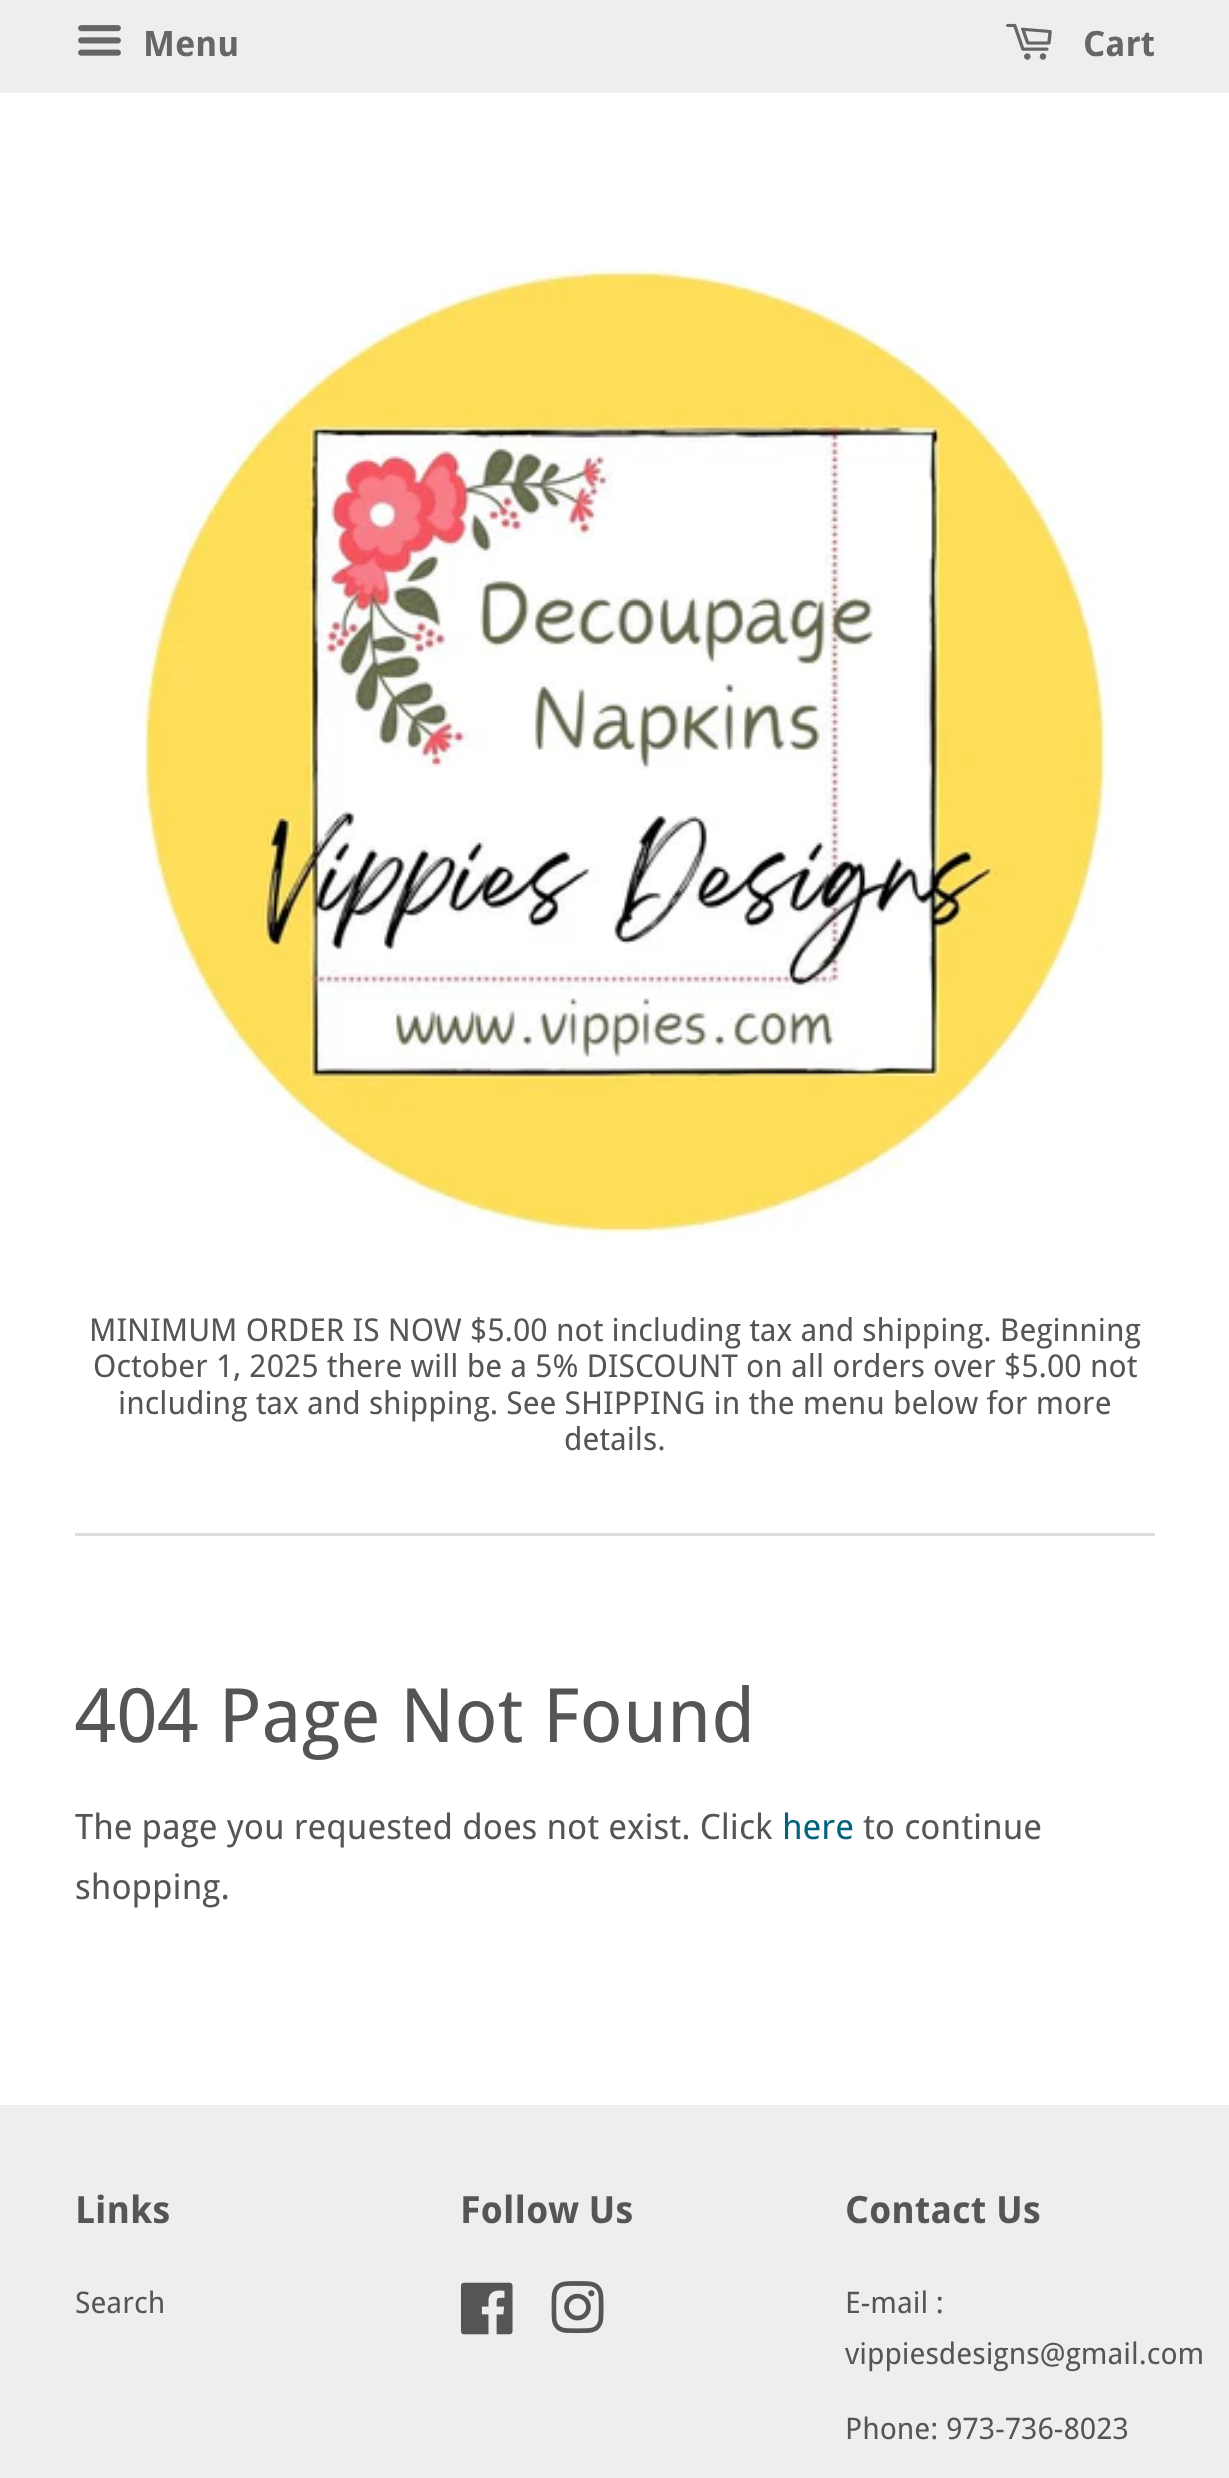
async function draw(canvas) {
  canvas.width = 1229
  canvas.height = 2478
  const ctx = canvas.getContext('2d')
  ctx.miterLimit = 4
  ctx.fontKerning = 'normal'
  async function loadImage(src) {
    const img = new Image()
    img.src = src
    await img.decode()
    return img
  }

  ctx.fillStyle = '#fff'
  ctx.fillRect(0, 0, 1229, 2478)
  ctx.fillStyle = '#eee'
  ctx.fillRect(0, 0, 1229, 93)
  ctx.drawImage(await loadImage('image0.png'), 78, 25, 43, 31)
  ctx.font = 'bold 35px Droid Sans'
  ctx.fillStyle = '#666'
  ctx.fillText('Menu', 143, 56)
  ctx.drawImage(await loadImage('image1.png'), 1006, 23, 46, 37)
  ctx.fillText('Cart', 1083, 56)
  ctx.fillStyle = '#ddd'
  ctx.fillRect(75, 1533, 1080, 3)
  ctx.drawImage(await loadImage('image2.png'), 133, 269, 979, 974)
  ctx.font = '31.5px Droid Sans'
  ctx.fillStyle = '#555'
  ctx.fillText('MINIMUM ORDER IS NOW $5.00 not including tax and shipping. Beginning', 89, 1341)
  ctx.fillText('October 1, 2025 there will be a 5% DISCOUNT on all orders', 93, 1377)
  ctx.fillText('over $5.00 not', 933, 1377)
  ctx.fillText('including tax and shipping. See SHIPPING in the menu below for more', 118, 1414)
  ctx.fillText('details.', 564, 1450)
  ctx.font = '75px Droid Sans'
  ctx.fillText('404 Page Not Found', 75, 1742)
  ctx.font = '35px Droid Sans'
  ctx.fillText('The page you requested does not exist. Click', 75, 1839)
  ctx.fillStyle = '#04637c'
  ctx.fillText('here', 782, 1839)
  ctx.fillStyle = '#555'
  ctx.fillText('to continue', 863, 1839)
  ctx.fillText('shopping.', 75, 1899)
  ctx.fillStyle = '#eee'
  ctx.fillRect(0, 2105, 1229, 373)
  ctx.font = 'bold 37.5px Droid Sans'
  ctx.fillStyle = '#555'
  ctx.fillText('Links', 75, 2223)
  ctx.font = '29.75px Droid Sans'
  ctx.fillText('Search', 75, 2313)
  ctx.font = 'bold 37.5px Droid Sans'
  ctx.fillText('Follow Us', 460, 2223)
  ctx.drawImage(await loadImage('image3.png'), 460, 2282, 53, 53)
  ctx.drawImage(await loadImage('image4.png'), 551, 2281, 53, 52)
  ctx.fillText('Contact Us', 845, 2223)
  ctx.font = '29.75px Droid Sans'
  ctx.fillText('E-mail :', 845, 2313)
  ctx.fillText('vippiesdesigns@gmail.com', 845, 2364)
  ctx.fillText('Phone: 973-736-8023', 845, 2439)
}

draw(document.querySelector('canvas'))
